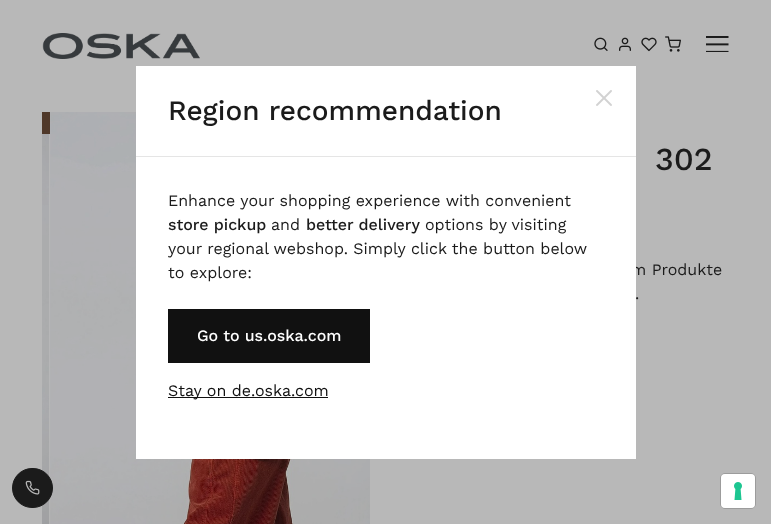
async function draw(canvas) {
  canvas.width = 771
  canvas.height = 524
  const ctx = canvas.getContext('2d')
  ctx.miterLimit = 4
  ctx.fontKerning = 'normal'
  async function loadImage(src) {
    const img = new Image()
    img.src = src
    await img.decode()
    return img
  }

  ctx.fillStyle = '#b8b8b8'
  ctx.fillRect(0, 0, 771, 524)
  ctx.drawImage(await loadImage('image0.png'), 42, 33, 158, 26)
  ctx.drawImage(await loadImage('image1.png'), 594, 37, 14, 14)
  ctx.drawImage(await loadImage('image2.png'), 619, 37, 12, 14)
  ctx.drawImage(await loadImage('image3.png'), 641, 37, 16, 15)
  ctx.drawImage(await loadImage('image4.png'), 665, 36, 16, 16)
  ctx.drawImage(await loadImage('image5.png'), 706, 36, 23, 16)
  ctx.drawImage(await loadImage('image8.png'), 50, 112, 320, 412)
  ctx.font = '16px Work Sans'
  ctx.fillStyle = '#1b1b1b'
  ctx.fillText('m Produkte', 631, 275)
  ctx.fillText('.', 635, 299)
  ctx.fillStyle = '#fff'
  ctx.fillRect(136, 66, 500, 393)
  ctx.fillStyle = '#e5e5e5'
  ctx.fillRect(136, 156, 500, 1)
  ctx.font = '500 28px Work Sans'
  ctx.fillStyle = '#1b1b1b'
  ctx.fillText('Region recommendation', 168, 120)
  ctx.drawImage(await loadImage('image6.png'), 596, 90, 16, 16)
  ctx.font = '16px Work Sans'
  ctx.fillText('Enhance your shopping experience with convenient', 168, 206)
  ctx.font = '500 16px Work Sans'
  ctx.fillText('store pickup', 168, 230)
  ctx.font = '16px Work Sans'
  ctx.fillText('and', 271, 230)
  ctx.font = '500 16px Work Sans'
  ctx.fillText('better delivery', 306, 230)
  ctx.font = '16px Work Sans'
  ctx.fillText('options by visiting', 425, 230)
  ctx.fillText('your regional webshop. Simply click the button below', 168, 254)
  ctx.fillText('to explore:', 168, 278)
  ctx.fillStyle = '#111'
  ctx.fillRect(168, 309, 202, 54)
  ctx.font = '500 16px Work Sans'
  ctx.fillStyle = '#fff'
  ctx.fillText('Go to us.oska.com', 197, 341)
  ctx.fillStyle = '#111'
  ctx.fillRect(168, 397, 160, 1)
  ctx.font = '16px Work Sans'
  ctx.fillText('Stay on de.oska.com', 168, 396)
  ctx.fillStyle = '#4f3829'
  ctx.fillRect(42, 112, 8, 22)
  ctx.drawImage(await loadImage('image7.png'), 42, 134, 8, 390)
  ctx.font = '500 32px Work Sans'
  ctx.fillStyle = '#1b1b1b'
  ctx.fillText('302', 655, 170)
  ctx.beginPath()
  ctx.roundRect(12.5, 468.5, 40, 39, 19.5)
  ctx.fill()
  ctx.strokeStyle = '#1b1b1b'
  ctx.stroke()
  ctx.drawImage(await loadImage('image9.png'), 25, 480, 15, 15)
  ctx.beginPath()
  ctx.roundRect(720.5, 473.5, 35, 35, 4.5)
  ctx.strokeStyle = '#9c9c9c'
  ctx.stroke()
  ctx.fillStyle = '#fff'
  ctx.beginPath()
  ctx.roundRect(721, 474, 34, 34, 4)
  ctx.fill()
  ctx.drawImage(await loadImage('image10.png'), 734, 482, 8, 18)
}

draw(document.querySelector('canvas'))
